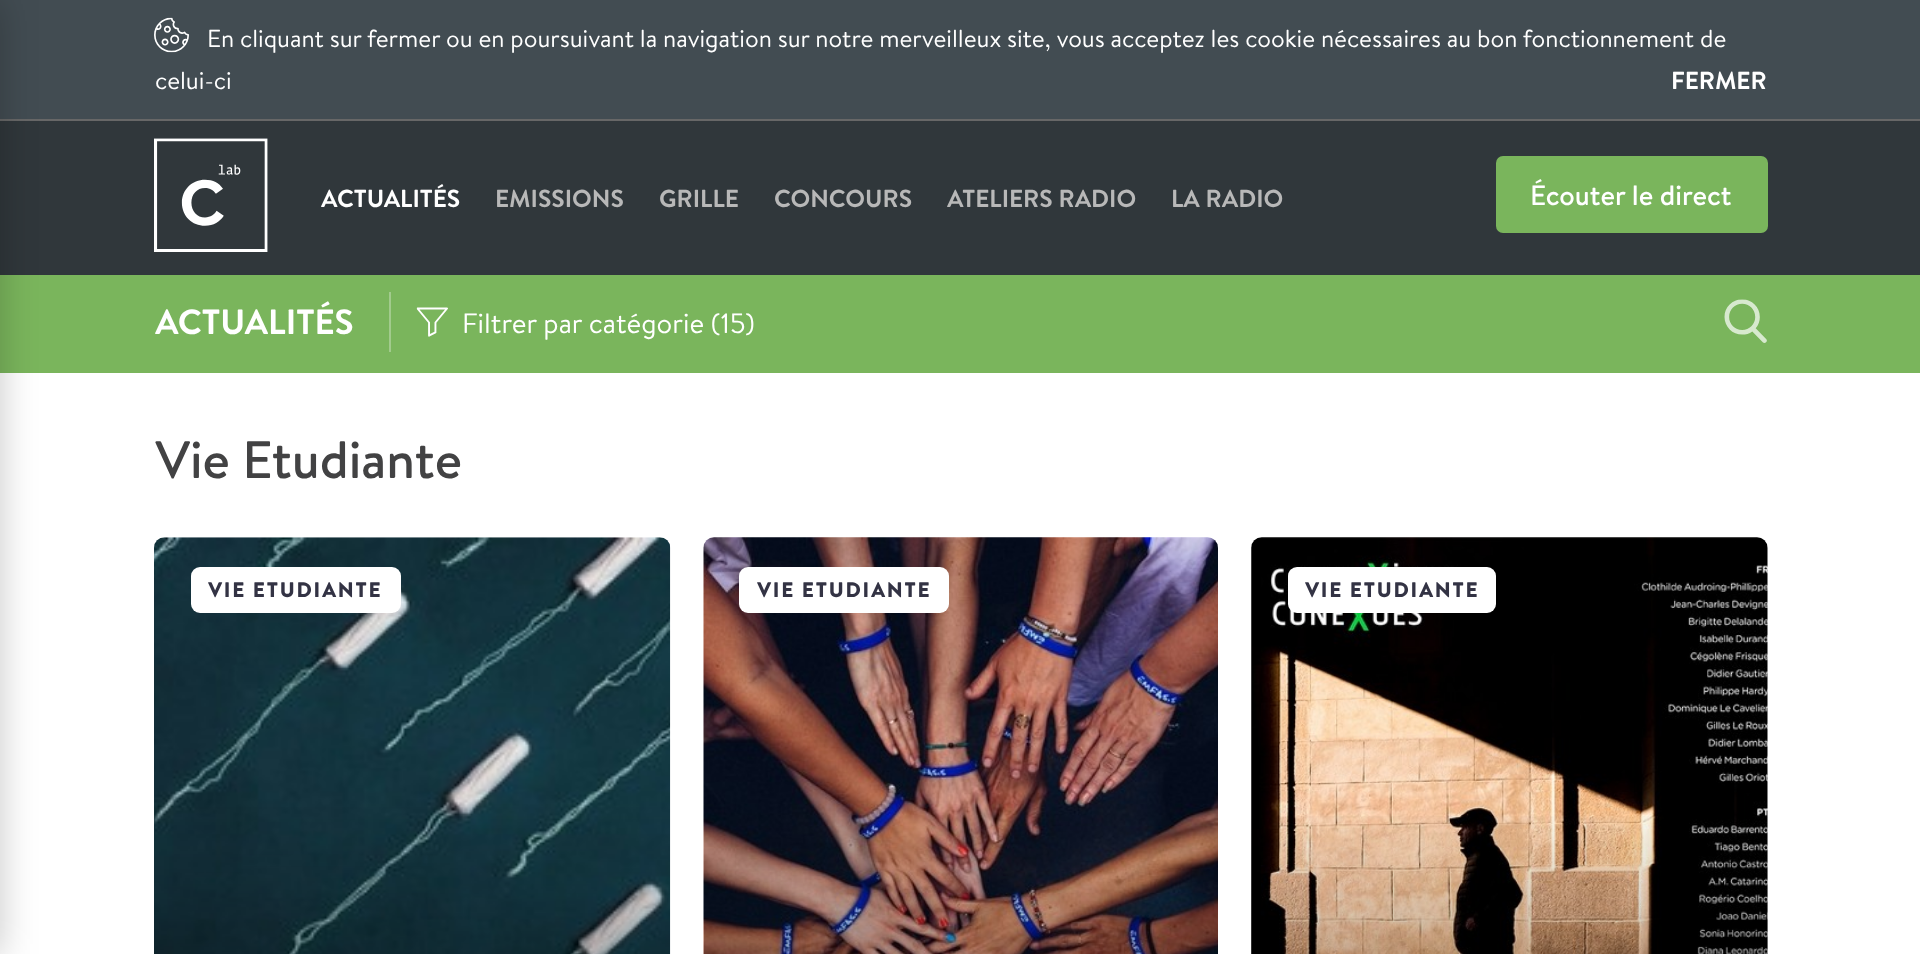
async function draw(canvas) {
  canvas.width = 1920
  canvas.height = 954
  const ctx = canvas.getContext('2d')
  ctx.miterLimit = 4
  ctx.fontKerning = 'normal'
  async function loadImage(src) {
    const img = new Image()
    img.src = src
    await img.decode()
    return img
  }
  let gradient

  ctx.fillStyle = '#fff'
  ctx.fillRect(0, 0, 1920, 954)
  ctx.fillStyle = '#424c52'
  ctx.fillRect(0, 0, 1920, 119)
  ctx.fillStyle = '#676767'
  ctx.fillRect(0, 119, 1920, 2)
  ctx.fillStyle = '#30373b'
  ctx.fillRect(0, 121, 1920, 154)
  ctx.fillStyle = '#7ab55c'
  ctx.fillRect(0, 275, 1920, 98)
  ctx.fillStyle = '#00000038'
  ctx.filter = 'blur(18.5px)'
  ctx.beginPath()
  ctx.rect(-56, 0, 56, 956)
  ctx.fill()
  ctx.filter = 'none'
  ctx.drawImage(await loadImage('image0.png'), 154, 17, 35, 36)
  ctx.font = '24.5px "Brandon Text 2"'
  ctx.fillStyle = '#fff'
  ctx.fillText('En cliquant sur fermer ou en poursuivant la navigation sur notre merveilleux site, vous acceptez les cookie nécessaires au bon fonctionnement de', 207, 47)
  ctx.fillText('celui-ci', 155, 89)
  ctx.font = '24.5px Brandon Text'
  ctx.fillText('FERMER', 1671, 89)
  ctx.drawImage(await loadImage('image1.png'), 154, 138, 114, 114)
  ctx.fillText('ACTUALITÉS', 321, 207)
  ctx.fillStyle = '#b8b8b8'
  ctx.fillText('EMISSIONS', 495, 207)
  ctx.fillText('GRILLE', 659, 207)
  ctx.fillText('CONCOURS', 774, 207)
  ctx.fillText('ATELIERS RADIO', 947, 207)
  ctx.fillText('LA RADIO', 1171, 207)
  ctx.fillStyle = '#7ab55c'
  ctx.beginPath()
  ctx.roundRect(1496, 156, 272, 77, 7)
  ctx.fill()
  ctx.font = '28px "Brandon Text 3"'
  ctx.fillStyle = '#fff'
  ctx.fillText('Écouter le direct', 1530, 205)
  ctx.fillStyle = '#a2cb8d'
  ctx.fillRect(389, 292, 2, 60)
  ctx.font = '35px Brandon Text'
  ctx.fillStyle = '#fff'
  ctx.fillText('ACTUALITÉS', 155, 334)
  ctx.drawImage(await loadImage('image2.png'), 416, 307, 32, 30)
  ctx.font = '28px "Brandon Text 2"'
  ctx.fillText('Filtrer par catégorie (15)', 462, 333)
  ctx.drawImage(await loadImage('image3.png'), 1724, 299, 43, 44)
  ctx.font = '52.5px "Brandon Text 3"'
  ctx.fillStyle = '#424243'
  ctx.fillText('Vie Etudiante', 155, 478)
  ctx.drawImage(await loadImage('image4.png'), 154, 537, 517, 417)
  ctx.fillStyle = '#fff'
  ctx.beginPath()
  ctx.roundRect(191, 567, 210, 46, 9)
  ctx.fill()
  ctx.letterSpacing = '1.75px'
  ctx.font = '500 21px Brandon Text'
  ctx.fillStyle = '#334'
  ctx.fillText('VIE ETUDIANTE', 208, 597)
  ctx.drawImage(await loadImage('image5.png'), 703, 537, 515, 417)
  ctx.fillStyle = '#fff'
  ctx.beginPath()
  ctx.roundRect(739, 567, 210, 46, 9)
  ctx.fill()
  ctx.fillStyle = '#334'
  ctx.fillText('VIE ETUDIANTE', 757, 597)
  ctx.drawImage(await loadImage('image6.png'), 1251, 537, 517, 417)
  gradient = ctx.createLinearGradient(1509, 800, 1509, 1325)
  gradient.addColorStop(0, '#00000000')
  gradient.addColorStop(1, '#000000b3')
  ctx.fillStyle = gradient
  ctx.fillRect(1251, 816, 517, 138)
  ctx.fillStyle = '#fff'
  ctx.beginPath()
  ctx.roundRect(1288, 567, 208, 46, 9)
  ctx.fill()
  ctx.fillStyle = '#334'
  ctx.fillText('VIE ETUDIANTE', 1305, 597)
}

draw(document.querySelector('canvas'))
